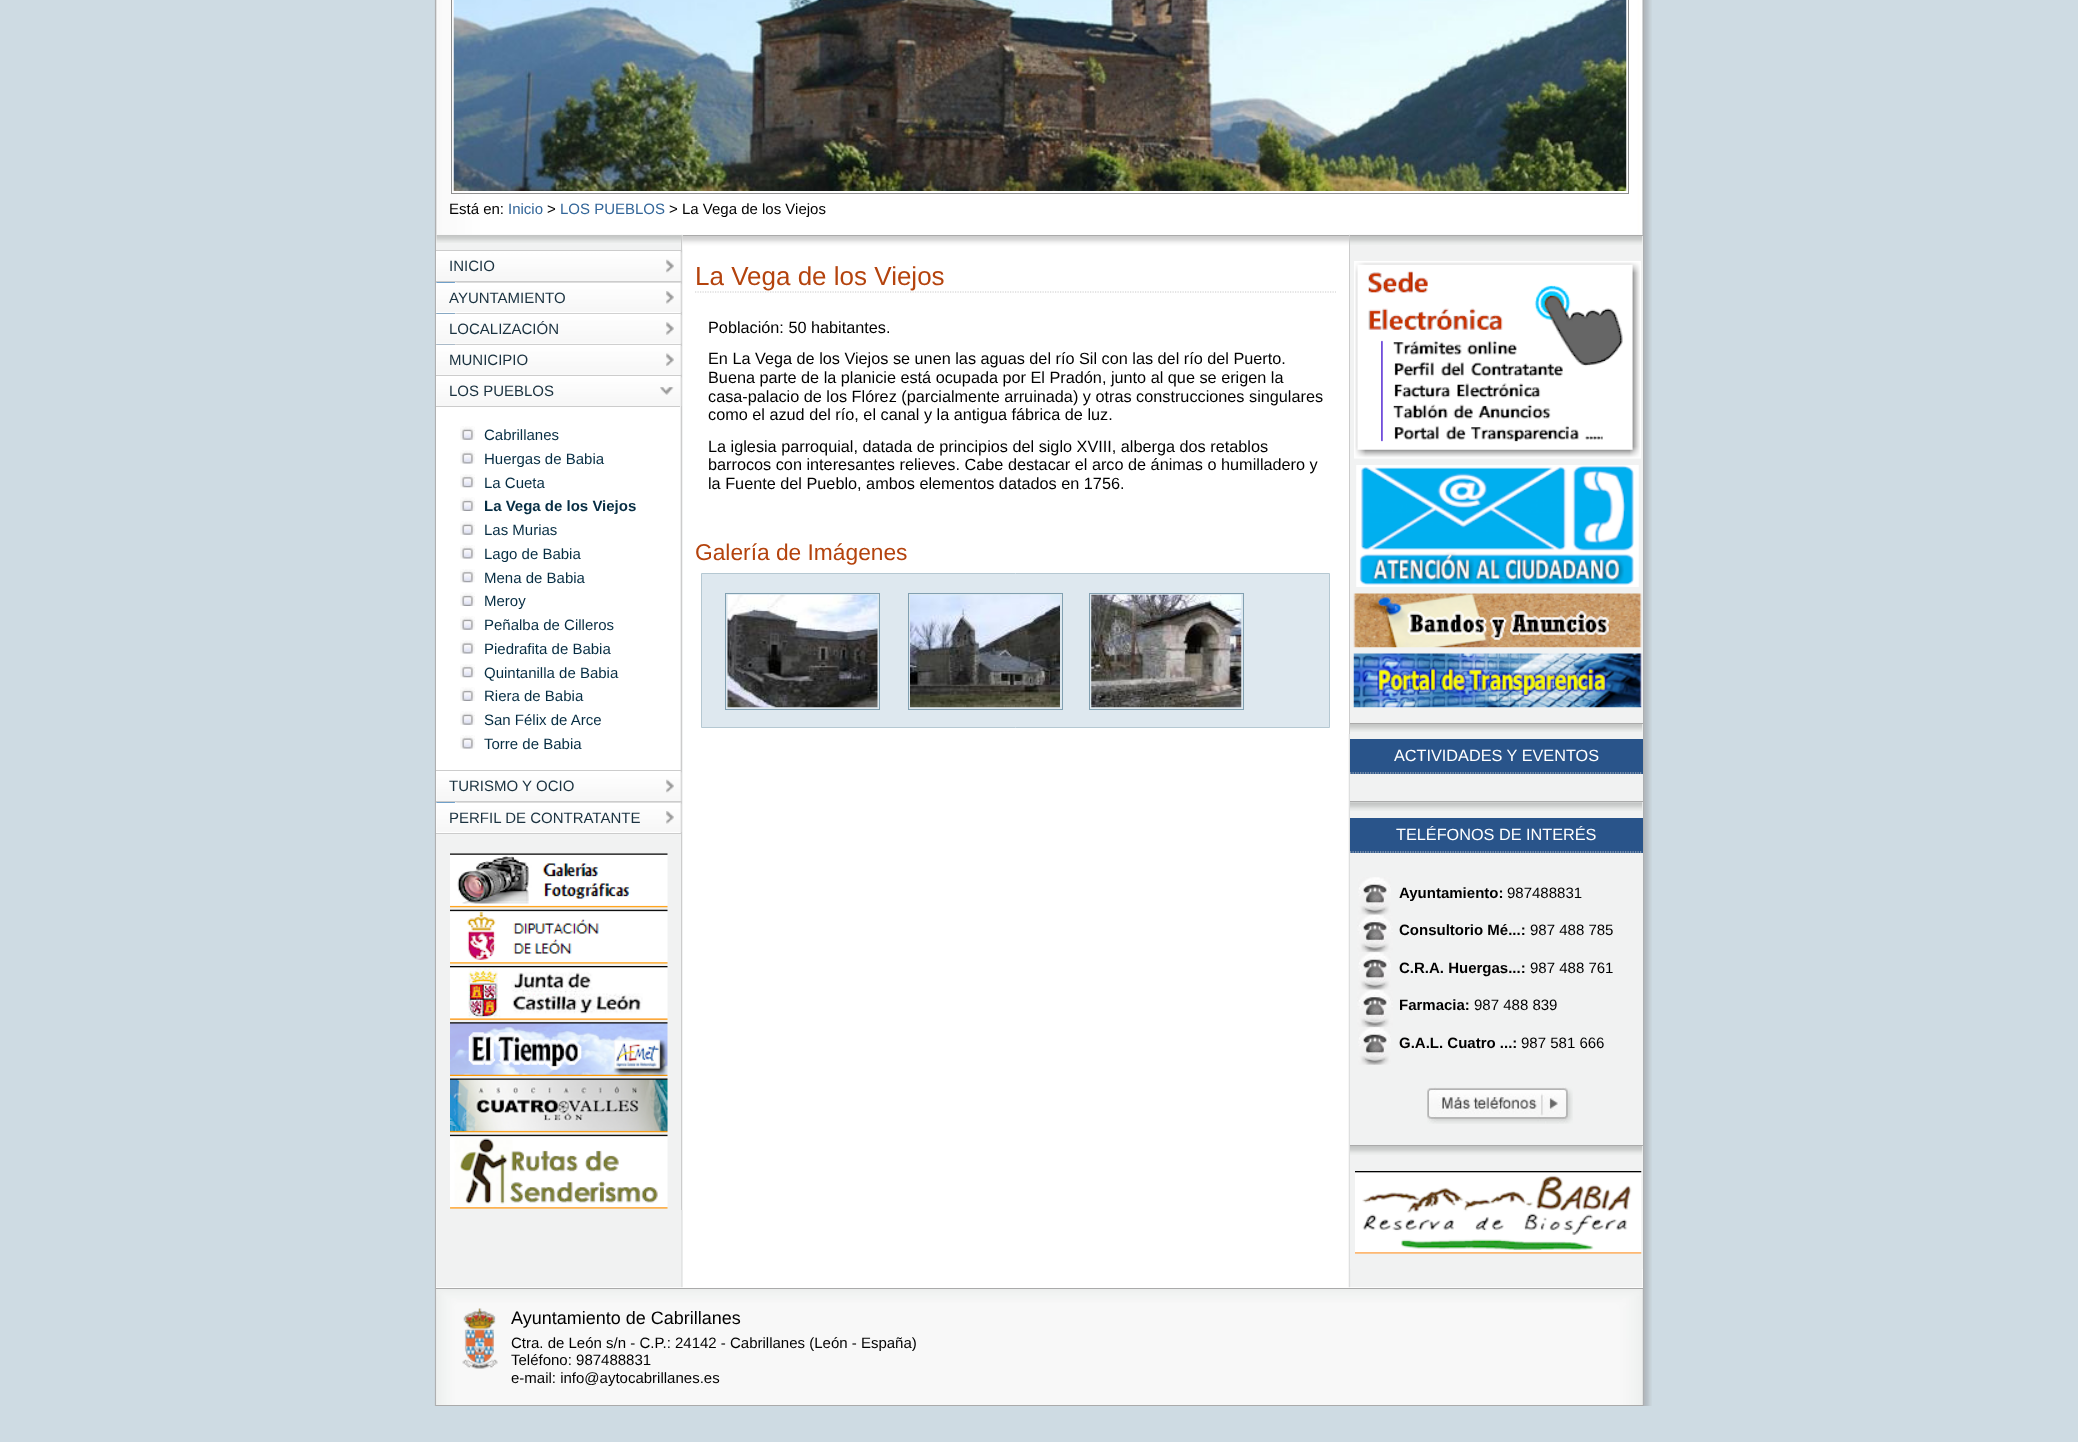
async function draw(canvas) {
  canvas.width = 2078
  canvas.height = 1442
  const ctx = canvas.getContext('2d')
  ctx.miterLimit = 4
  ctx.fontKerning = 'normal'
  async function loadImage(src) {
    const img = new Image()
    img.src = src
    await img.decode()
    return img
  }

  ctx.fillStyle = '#cedbe3'
  ctx.fillRect(0, 0, 2078, 1442)
  ctx.drawImage(await loadImage('image0.png'), 434, 0, 1218, 1406)
  ctx.strokeStyle = '#8f8f8f'
  ctx.strokeRect(451.5, -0.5, 1177, 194)
  ctx.drawImage(await loadImage('image1.png'), 453, 0, 1174, 191)
  ctx.font = '15px Liberation Sans'
  ctx.fillStyle = '#000'
  ctx.fillText('Está en:', 449, 214)
  ctx.fillStyle = '#369'
  ctx.fillText('Inicio', 508, 214)
  ctx.fillStyle = '#000'
  ctx.fillText('>', 547, 214)
  ctx.fillStyle = '#369'
  ctx.fillText('LOS PUEBLOS', 560, 214)
  ctx.fillStyle = '#000'
  ctx.fillText('> La Vega de los Viejos', 669, 214)
  ctx.fillStyle = '#fff'
  ctx.fillRect(436, 1210, 1207, 78)
  ctx.drawImage(await loadImage('image2.png'), 436, 234, 1207, 1054)
  ctx.fillStyle = '#f1f2f2'
  ctx.fillRect(436, 235, 247, 975)
  ctx.drawImage(await loadImage('image3.png'), 436, 235, 247, 8)
  ctx.fillStyle = '#ccc'
  ctx.fillRect(681, 235, 1, 975)
  ctx.fillRect(436, 250, 245, 1)
  ctx.fillRect(436, 281, 245, 1)
  ctx.fillStyle = '#fff'
  ctx.fillRect(436, 251, 244, 30)
  ctx.drawImage(await loadImage('image4.png'), 436, 252, 246, 29)
  ctx.fillStyle = '#eee'
  ctx.fillRect(680, 251, 1, 30)
  ctx.drawImage(await loadImage('image5.png'), 666, 259, 8, 14)
  ctx.fillStyle = '#1a3240'
  ctx.fillText('INICIO', 449, 271)
  ctx.drawImage(await loadImage('image6.png'), 436, 282, 245, 1)
  ctx.fillStyle = '#ccc'
  ctx.fillRect(436, 313, 245, 1)
  ctx.fillStyle = '#fff'
  ctx.fillRect(436, 283, 244, 30)
  ctx.drawImage(await loadImage('image7.png'), 436, 283, 246, 29)
  ctx.fillStyle = '#eee'
  ctx.fillRect(680, 283, 1, 30)
  ctx.drawImage(await loadImage('image8.png'), 666, 291, 8, 13)
  ctx.fillStyle = '#1a3240'
  ctx.fillText('AYUNTAMIENTO', 449, 303)
  ctx.drawImage(await loadImage('image9.png'), 436, 313, 245, 1)
  ctx.fillStyle = '#ccc'
  ctx.fillRect(436, 344, 245, 1)
  ctx.fillStyle = '#fff'
  ctx.fillRect(436, 314, 244, 30)
  ctx.drawImage(await loadImage('image10.png'), 436, 315, 246, 29)
  ctx.fillStyle = '#eee'
  ctx.fillRect(680, 314, 1, 30)
  ctx.drawImage(await loadImage('image11.png'), 666, 322, 8, 13)
  ctx.fillStyle = '#1a3240'
  ctx.fillText('LOCALIZACIÓN', 449, 334)
  ctx.drawImage(await loadImage('image12.png'), 436, 344, 245, 1)
  ctx.fillStyle = '#ccc'
  ctx.fillRect(436, 375, 245, 1)
  ctx.fillStyle = '#fff'
  ctx.fillRect(436, 345, 244, 30)
  ctx.drawImage(await loadImage('image13.png'), 436, 346, 246, 29)
  ctx.fillStyle = '#eee'
  ctx.fillRect(680, 345, 1, 30)
  ctx.drawImage(await loadImage('image14.png'), 666, 353, 8, 13)
  ctx.fillStyle = '#1a3240'
  ctx.fillText('MUNICIPIO', 449, 365)
  ctx.fillStyle = '#ccc'
  ctx.fillRect(436, 770, 245, 1)
  ctx.fillStyle = '#fff'
  ctx.fillRect(436, 376, 244, 30)
  ctx.drawImage(await loadImage('image15.png'), 436, 377, 246, 29)
  ctx.fillStyle = '#eee'
  ctx.fillRect(680, 376, 1, 30)
  ctx.drawImage(await loadImage('image16.png'), 660, 387, 14, 8)
  ctx.fillStyle = '#1a3240'
  ctx.fillText('LOS PUEBLOS', 449, 396)
  ctx.fillStyle = '#fff'
  ctx.fillRect(436, 407, 244, 363)
  ctx.fillStyle = '#ccc'
  ctx.fillRect(436, 406, 245, 1)
  ctx.fillStyle = '#eee'
  ctx.fillRect(680, 406, 1, 364)
  ctx.drawImage(await loadImage('image17.png'), 460, 426, 15, 14)
  ctx.fillStyle = '#062d43'
  ctx.fillText('Cabrillanes', 484, 440)
  ctx.drawImage(await loadImage('image18.png'), 460, 450, 15, 14)
  ctx.fillText('Huergas de Babia', 484, 464)
  ctx.drawImage(await loadImage('image19.png'), 460, 474, 15, 14)
  ctx.fillText('La Cueta', 484, 488)
  ctx.drawImage(await loadImage('image20.png'), 460, 497, 15, 14)
  ctx.font = 'bold 15px Liberation Sans'
  ctx.fillText('La Vega de los Viejos', 484, 511)
  ctx.drawImage(await loadImage('image17.png'), 460, 521, 15, 14)
  ctx.font = '15px Liberation Sans'
  ctx.fillText('Las Murias', 484, 535)
  ctx.drawImage(await loadImage('image18.png'), 460, 545, 15, 14)
  ctx.fillText('Lago de Babia', 484, 559)
  ctx.drawImage(await loadImage('image19.png'), 460, 569, 15, 14)
  ctx.fillText('Mena de Babia', 484, 583)
  ctx.drawImage(await loadImage('image20.png'), 460, 592, 15, 14)
  ctx.fillText('Meroy', 484, 606)
  ctx.drawImage(await loadImage('image17.png'), 460, 616, 15, 14)
  ctx.fillText('Peñalba de Cilleros', 484, 630)
  ctx.drawImage(await loadImage('image18.png'), 460, 640, 15, 14)
  ctx.fillText('Piedrafita de Babia', 484, 654)
  ctx.drawImage(await loadImage('image19.png'), 460, 664, 15, 14)
  ctx.fillText('Quintanilla de Babia', 484, 678)
  ctx.drawImage(await loadImage('image20.png'), 460, 687, 15, 14)
  ctx.fillText('Riera de Babia', 484, 701)
  ctx.drawImage(await loadImage('image17.png'), 460, 711, 15, 14)
  ctx.fillText('San Félix de Arce', 484, 725)
  ctx.drawImage(await loadImage('image18.png'), 460, 735, 15, 14)
  ctx.fillText('Torre de Babia', 484, 749)
  ctx.fillStyle = '#ccc'
  ctx.fillRect(436, 801, 245, 1)
  ctx.fillStyle = '#fff'
  ctx.fillRect(436, 771, 244, 30)
  ctx.drawImage(await loadImage('image15.png'), 436, 772, 246, 29)
  ctx.fillStyle = '#eee'
  ctx.fillRect(680, 771, 1, 30)
  ctx.drawImage(await loadImage('image5.png'), 666, 779, 8, 14)
  ctx.fillStyle = '#1a3240'
  ctx.fillText('TURISMO Y OCIO', 449, 791)
  ctx.drawImage(await loadImage('image6.png'), 436, 802, 245, 1)
  ctx.fillStyle = '#ccc'
  ctx.fillRect(436, 833, 245, 1)
  ctx.fillStyle = '#fff'
  ctx.fillRect(436, 803, 244, 30)
  ctx.drawImage(await loadImage('image7.png'), 436, 803, 246, 29)
  ctx.fillStyle = '#eee'
  ctx.fillRect(680, 803, 1, 30)
  ctx.drawImage(await loadImage('image8.png'), 666, 811, 8, 13)
  ctx.fillStyle = '#1a3240'
  ctx.fillText('PERFIL DE CONTRATANTE', 449, 823)
  ctx.drawImage(await loadImage('image21.png'), 450, 853, 218, 55)
  ctx.drawImage(await loadImage('image22.png'), 450, 909, 218, 55)
  ctx.drawImage(await loadImage('image23.png'), 450, 966, 218, 54)
  ctx.drawImage(await loadImage('image24.png'), 450, 1022, 218, 54)
  ctx.drawImage(await loadImage('image25.png'), 450, 1078, 218, 55)
  ctx.drawImage(await loadImage('image26.png'), 450, 1134, 218, 75)
  ctx.fillStyle = '#fff'
  ctx.fillRect(1348, 249, 1, 485)
  ctx.drawImage(await loadImage('image27.png'), 682, 236, 667, 14)
  ctx.fillStyle = '#aaa'
  ctx.fillRect(683, 235, 960, 1)
  ctx.fillStyle = '#ccc'
  ctx.fillRect(1349, 235, 1, 499)
  ctx.beginPath()
  ctx.moveTo(695, 292)
  ctx.lineTo(1336, 292)
  ctx.strokeStyle = '#ccc'
  ctx.lineWidth = 1.2
  ctx.setLineDash([1.25, 1.25])
  ctx.stroke()
  ctx.font = '26px Liberation Sans'
  ctx.fillStyle = '#b4430d'
  ctx.fillText('La Vega de los Viejos', 695, 285)
  ctx.font = '16.25px Liberation Sans'
  ctx.fillStyle = '#000'
  ctx.fillText('Población: 50 habitantes.', 708, 333)
  ctx.fillText('En La Vega de los Viejos se unen las aguas del río Sil con las del río del Puerto.', 708, 364)
  ctx.fillText('Buena parte de la planicie está ocupada por El Pradón, junto al que se erigen la', 708, 383)
  ctx.fillText('casa-palacio de los Flórez (parcialmente arruinada) y otras construcciones singulares', 708, 402)
  ctx.fillText('como el azud del río, el canal y la antigua fábrica de luz.', 708, 420)
  ctx.fillText('La iglesia parroquial, datada de principios del siglo XVIII, alberga dos retablos', 708, 452)
  ctx.fillText('barrocos con interesantes relieves. Cabe destacar el arco de ánimas o humilladero y', 708, 470)
  ctx.fillText('la Fuente del Pueblo, ambos elementos datados en 1756.', 708, 489)
  ctx.font = '22.75px Liberation Sans'
  ctx.fillStyle = '#b4430d'
  ctx.fillText('Galería de Imágenes', 695, 560)
  ctx.fillStyle = '#dee8ef'
  ctx.beginPath()
  ctx.rect(701.5, 573.5, 628, 154)
  ctx.fill()
  ctx.strokeStyle = '#b5c8d2'
  ctx.lineWidth = 1
  ctx.setLineDash([])
  ctx.stroke()
  ctx.strokeStyle = '#81a0b1'
  ctx.strokeRect(725.5, 593.5, 154, 116)
  ctx.strokeRect(908.5, 593.5, 154, 116)
  ctx.strokeRect(1089.5, 593.5, 154, 116)
  ctx.drawImage(await loadImage('image28.png'), 727, 594, 151, 114)
  ctx.drawImage(await loadImage('image29.png'), 910, 594, 150, 114)
  ctx.drawImage(await loadImage('image30.png'), 1091, 594, 151, 114)
  ctx.fillStyle = '#f1f2f2'
  ctx.fillRect(1350, 236, 293, 487)
  ctx.drawImage(await loadImage('image31.png'), 1350, 236, 293, 9)
  ctx.drawImage(await loadImage('image32.png'), 1354, 261, 287, 198)
  ctx.drawImage(await loadImage('image33.png'), 1356, 465, 283, 122)
  ctx.drawImage(await loadImage('image34.png'), 1353, 593, 289, 55)
  ctx.drawImage(await loadImage('image35.png'), 1353, 653, 289, 55)
  ctx.fillRect(1350, 724, 293, 77)
  ctx.drawImage(await loadImage('image36.png'), 1350, 724, 293, 8)
  ctx.fillStyle = '#aaa'
  ctx.fillRect(1350, 723, 293, 1)
  ctx.fillStyle = '#29548a'
  ctx.fillRect(1350, 739, 293, 35)
  ctx.beginPath()
  ctx.moveTo(1350, 773)
  ctx.lineTo(1642.5, 773)
  ctx.strokeStyle = '#ccc'
  ctx.lineWidth = 1.2
  ctx.setLineDash([1.25, 1.25])
  ctx.stroke()
  ctx.font = '16.25px Liberation Sans'
  ctx.fillStyle = '#fff'
  ctx.fillText('ACTIVIDADES Y EVENTOS', 1394, 761)
  ctx.fillStyle = '#f1f2f2'
  ctx.fillRect(1350, 802, 293, 343)
  ctx.drawImage(await loadImage('image37.png'), 1350, 802, 293, 9)
  ctx.fillStyle = '#aaa'
  ctx.fillRect(1350, 801, 293, 1)
  ctx.fillStyle = '#29548a'
  ctx.fillRect(1350, 818, 293, 35)
  ctx.beginPath()
  ctx.moveTo(1350, 852)
  ctx.lineTo(1642.5, 852)
  ctx.stroke()
  ctx.fillStyle = '#fff'
  ctx.fillText('TELÉFONOS DE INTERÉS', 1396, 840)
  ctx.drawImage(await loadImage('image38.png'), 1358, 877, 33, 38)
  ctx.font = 'bold 15px Liberation Sans'
  ctx.fillStyle = '#000'
  ctx.fillText('Ayuntamiento:', 1399, 898)
  ctx.font = '15px Liberation Sans'
  ctx.fillText('987488831', 1507, 898)
  ctx.drawImage(await loadImage('image39.png'), 1357, 914, 36, 39)
  ctx.font = 'bold 15px Liberation Sans'
  ctx.fillText('Consultorio Mé...:', 1399, 935)
  ctx.font = '15px Liberation Sans'
  ctx.fillText('987 488 785', 1530, 935)
  ctx.drawImage(await loadImage('image40.png'), 1358, 952, 33, 38)
  ctx.font = 'bold 15px Liberation Sans'
  ctx.fillText('C.R.A. Huergas...:', 1399, 973)
  ctx.font = '15px Liberation Sans'
  ctx.fillText('987 488 761', 1530, 973)
  ctx.drawImage(await loadImage('image39.png'), 1357, 989, 36, 39)
  ctx.font = 'bold 15px Liberation Sans'
  ctx.fillText('Farmacia:', 1399, 1010)
  ctx.font = '15px Liberation Sans'
  ctx.fillText('987 488 839', 1474, 1010)
  ctx.drawImage(await loadImage('image41.png'), 1358, 1027, 33, 38)
  ctx.font = 'bold 15px Liberation Sans'
  ctx.fillText('G.A.L. Cuatro ...:', 1399, 1048)
  ctx.font = '15px Liberation Sans'
  ctx.fillText('987 581 666', 1521, 1048)
  ctx.drawImage(await loadImage('image42.png'), 1427, 1087, 146, 37)
  ctx.fillStyle = '#f1f2f2'
  ctx.fillRect(1350, 1146, 293, 123)
  ctx.drawImage(await loadImage('image43.png'), 1350, 1146, 293, 9)
  ctx.fillStyle = '#aaa'
  ctx.fillRect(1350, 1145, 293, 1)
  ctx.drawImage(await loadImage('image44.png'), 1355, 1171, 287, 83)
  ctx.drawImage(await loadImage('image45.png'), 436, 1289, 1207, 116)
  ctx.fillRect(436, 1288, 1207, 1)
  ctx.fillRect(436, 1405, 1207, 1)
  ctx.drawImage(await loadImage('image46.png'), 462, 1308, 36, 61)
  ctx.font = '18px Liberation Sans'
  ctx.fillStyle = '#000'
  ctx.fillText('Ayuntamiento de Cabrillanes', 511, 1324)
  ctx.font = '15px Liberation Sans'
  ctx.fillText('Ctra. de León s/n - C.P.: 24142 - Cabrillanes (León - España)', 511, 1348)
  ctx.fillText('Teléfono: 987488831', 511, 1365)
  ctx.fillText('e-mail: info@aytocabrillanes.es', 511, 1383)
}

draw(document.querySelector('canvas'))
